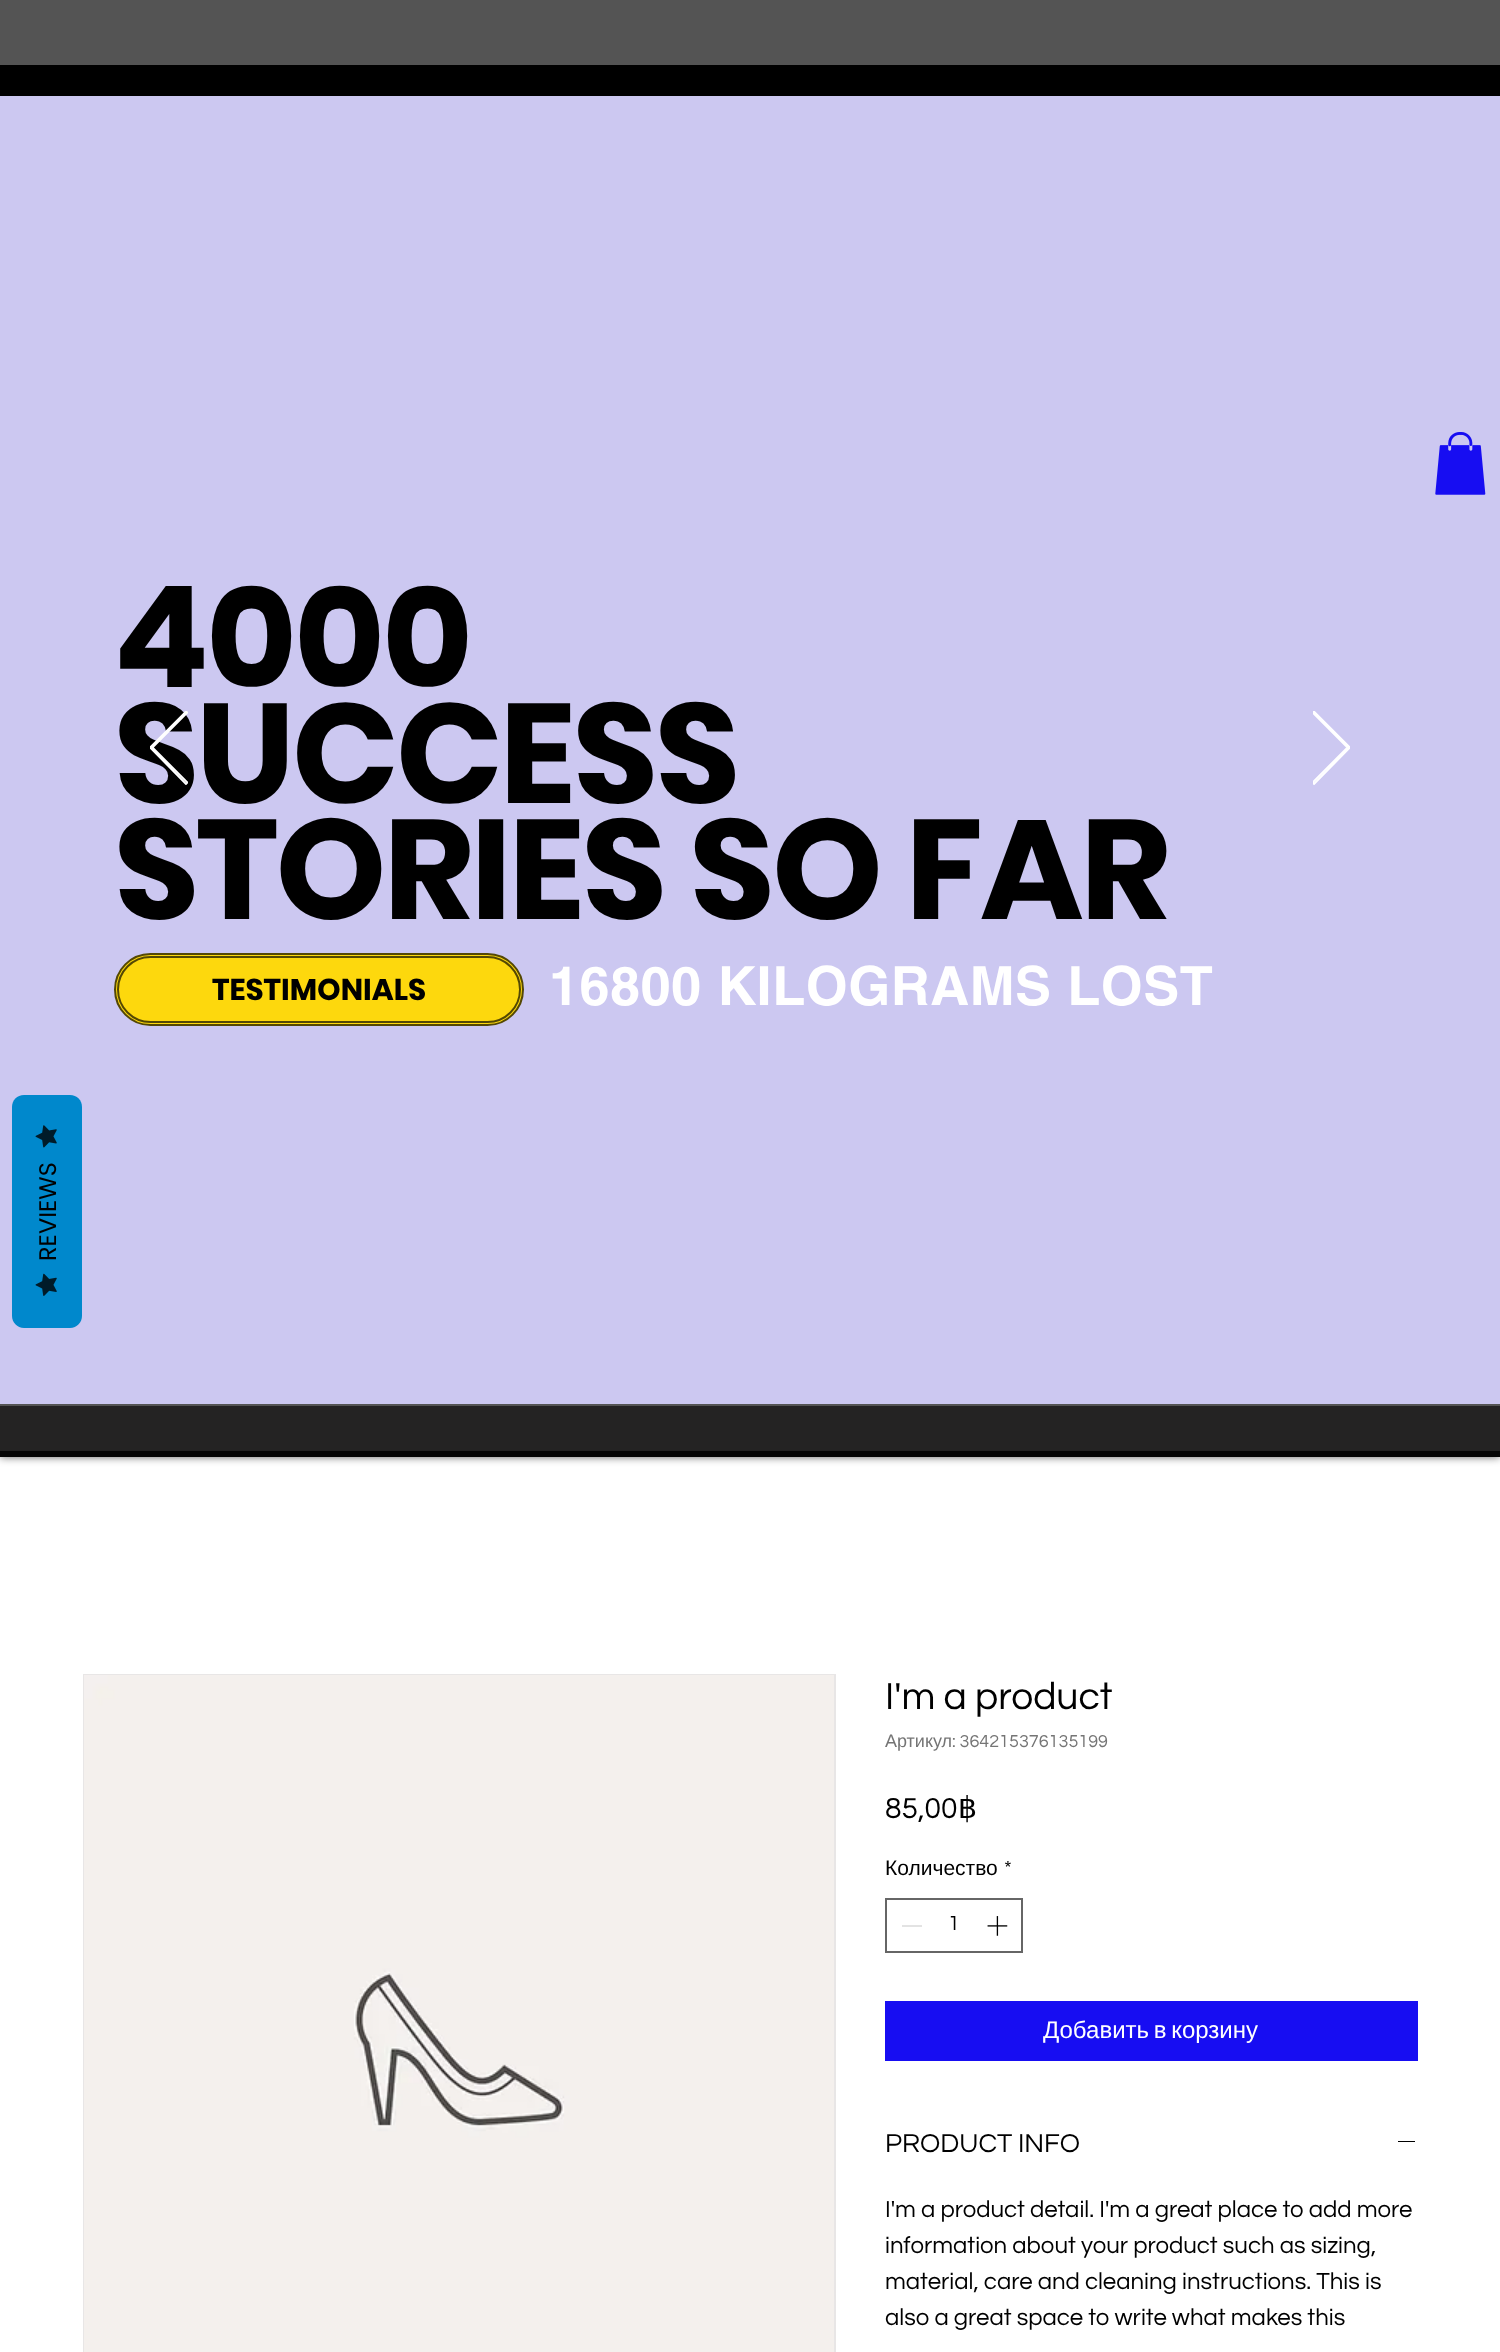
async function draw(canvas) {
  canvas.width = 1500
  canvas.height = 2352
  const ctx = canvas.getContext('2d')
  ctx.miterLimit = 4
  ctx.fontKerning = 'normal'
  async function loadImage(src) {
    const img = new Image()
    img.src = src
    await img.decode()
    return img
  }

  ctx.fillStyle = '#fff'
  ctx.fillRect(0, 0, 1500, 2352)
  ctx.save()
  ctx.beginPath()
  ctx.moveTo(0, 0)
  ctx.lineTo(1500, 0)
  ctx.lineTo(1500, 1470)
  ctx.lineTo(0, 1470)
  ctx.closePath()
  ctx.moveTo(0, -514)
  ctx.lineTo(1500, -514)
  ctx.lineTo(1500, 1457)
  ctx.lineTo(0, 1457)
  ctx.closePath()
  ctx.clip('evenodd')
  ctx.fillStyle = '#00000099'
  ctx.filter = 'blur(4px)'
  ctx.beginPath()
  ctx.rect(0, -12, 1500, 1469)
  ctx.fill()
  ctx.filter = 'none'
  ctx.restore()
  ctx.fillStyle = '#000000ab'
  ctx.fillRect(0, 0, 1500, 1457)
  ctx.fillStyle = '#ccc8f1'
  ctx.fillRect(0, 96, 1500, 1308)
  ctx.fillStyle = '#08c'
  ctx.beginPath()
  ctx.moveTo(12, 1316)
  ctx.lineTo(12, 1107)
  ctx.bezierCurveTo(12, 1100, 17, 1095, 24, 1095)
  ctx.lineTo(70, 1095)
  ctx.bezierCurveTo(77, 1095, 82, 1100, 82, 1107)
  ctx.lineTo(82, 1316)
  ctx.bezierCurveTo(82, 1322, 77, 1328, 70, 1328)
  ctx.lineTo(24, 1328)
  ctx.bezierCurveTo(17, 1328, 12, 1322, 12, 1316)
  ctx.closePath()
  ctx.fill()
  ctx.drawImage(await loadImage('image0.png'), 35, 1125, 22, 23)
  ctx.font = '24px Poppins'
  ctx.fillStyle = '#000'
  ctx.save()
  ctx.translate(56, 1261)
  ctx.rotate(-90 * Math.PI / 180)
  ctx.fillText('REVIEWS', 0, 0)
  ctx.restore()
  ctx.drawImage(await loadImage('image1.png'), 35, 1273, 22, 23)
  ctx.fillStyle = '#000000ed'
  ctx.fillRect(0, 1451, 1500, 6)
  ctx.fillStyle = '#000'
  ctx.fillRect(0, 65, 1500, 31)
  ctx.drawImage(await loadImage('image2.png'), 1435, 432, 51, 63)
  ctx.letterSpacing = '-2.75px'
  ctx.font = 'bold 141px Poppins'
  ctx.fillText('4000', 114, 687)
  ctx.fillText('SUCCESS', 114, 803)
  ctx.fillText('STORIES SO FAR', 114, 919)
  ctx.fillStyle = '#fdd80d'
  ctx.beginPath()
  ctx.roundRect(115, 954, 408, 71, 35.5)
  ctx.fill()
  ctx.strokeStyle = '#544804'
  ctx.lineWidth = 2
  ctx.stroke()
  ctx.beginPath()
  ctx.roundRect(118, 957, 402, 65, 32.5)
  ctx.stroke()
  ctx.letterSpacing = '0px'
  ctx.font = 'bold 30px Poppins'
  ctx.fillStyle = '#000'
  ctx.fillText('TESTIMONIALS', 212, 1000)
  ctx.letterSpacing = '0.5px'
  ctx.font = 'bold 54px helvetica'
  ctx.fillStyle = '#fff'
  ctx.fillText('16800 KILOGRAMS LOST', 549, 1005)
  ctx.save()
  ctx.beginPath()
  ctx.rect(150, 711, 38, 74)
  ctx.clip()
  ctx.beginPath()
  ctx.moveTo(186, 784)
  ctx.lineTo(150, 747.5)
  ctx.lineTo(186, 711.5)
  ctx.lineTo(187.5, 712.5)
  ctx.lineTo(152.5, 747.5)
  ctx.lineTo(187.5, 782.5)
  ctx.closePath()
  ctx.strokeStyle = '#fff'
  ctx.lineWidth = 1.8
  ctx.stroke()
  ctx.restore()
  ctx.save()
  ctx.beginPath()
  ctx.rect(1313, 711, 37, 74)
  ctx.clip()
  ctx.beginPath()
  ctx.moveTo(1314, 784)
  ctx.lineTo(1350, 747.5)
  ctx.lineTo(1314, 711.5)
  ctx.lineTo(1312.5, 712.5)
  ctx.lineTo(1347.5, 747.5)
  ctx.lineTo(1312.5, 782.5)
  ctx.closePath()
  ctx.strokeStyle = '#fff'
  ctx.lineWidth = 1.8
  ctx.stroke()
  ctx.restore()
  ctx.fillStyle = '#242323'
  ctx.fillRect(0, 1406, 1500, 45)
  ctx.strokeStyle = '#e8e6e6'
  ctx.strokeRect(84, 1675, 751, 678)
  ctx.drawImage(await loadImage('image3.png'), 84, 1675, 750, 677)
  ctx.letterSpacing = '0px'
  ctx.font = '39px Questrial'
  ctx.fillStyle = '#000'
  ctx.fillText('I\'m a product', 885, 1709)
  ctx.font = '18px Liberation Sans'
  ctx.fillStyle = '#757575'
  ctx.fillText('Артикул', 885, 1747)
  ctx.font = '18px Questrial'
  ctx.fillText(': 364215376135199', 952, 1747)
  ctx.font = '30px Questrial'
  ctx.fillStyle = '#000'
  ctx.fillText('85,00', 885, 1818)
  ctx.font = '30px DejaVu Sans'
  ctx.fillText('฿', 958, 1818)
  ctx.font = '21px Liberation Sans'
  ctx.fillText('Количество', 885, 1875)
  ctx.font = '21px Questrial'
  ctx.fillText('*', 1004, 1875)
  ctx.strokeStyle = '#666'
  ctx.strokeRect(886, 1899, 136, 53)
  ctx.fillStyle = '#e3e3e3'
  ctx.fillRect(902, 1925, 20, 2)
  ctx.fillStyle = '#000'
  ctx.fillText('1', 948, 1930)
  ctx.drawImage(await loadImage('image4.png'), 987, 1916, 21, 20)
  ctx.fillStyle = '#170df2'
  ctx.fillRect(885, 2001, 533, 60)
  ctx.wordSpacing = '-2px'
  ctx.font = '24px Liberation Sans'
  ctx.fillStyle = '#fff'
  ctx.fillText('Добавить в корзину', 1043, 2038)
  ctx.wordSpacing = '0px'
  ctx.font = '27px Questrial'
  ctx.fillStyle = '#000'
  ctx.fillText('PRODUCT INFO', 885, 2152)
  ctx.fillRect(1398, 2141, 17, 1)
  ctx.font = '24px Questrial'
  ctx.fillText('I\'m a product detail. I\'m a great place to add more', 885, 2217)
  ctx.fillText('information about your product such as sizing,', 885, 2253)
  ctx.fillText('material, care and cleaning instructions. This is', 885, 2289)
  ctx.fillText('also a great space to write what makes this', 885, 2325)
}

draw(document.querySelector('canvas'))
